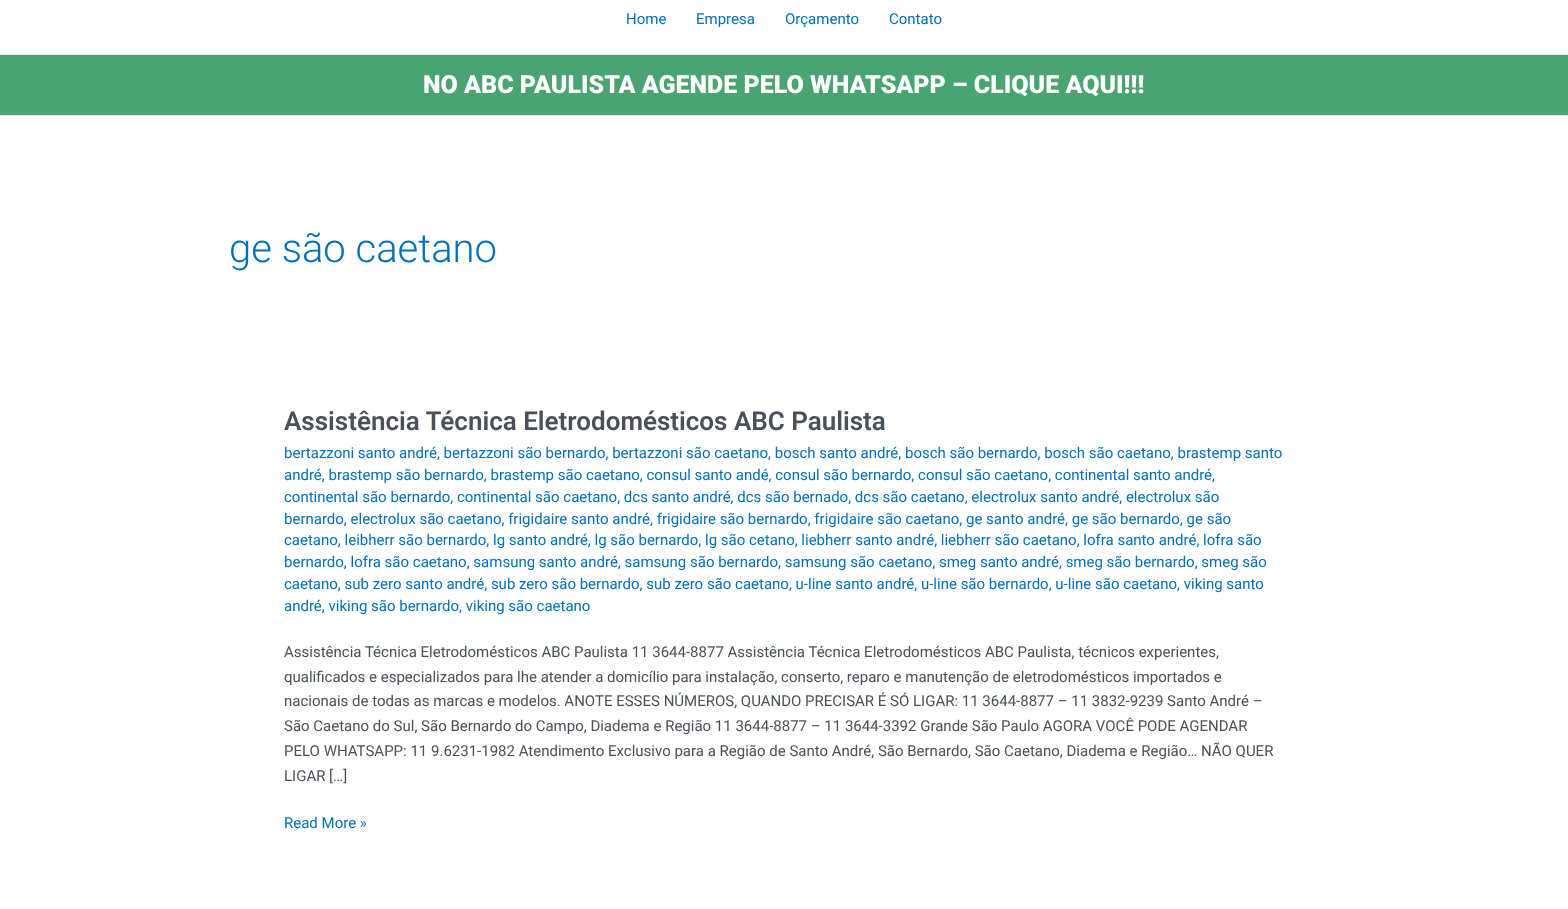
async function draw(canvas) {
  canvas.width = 1568
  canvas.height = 909
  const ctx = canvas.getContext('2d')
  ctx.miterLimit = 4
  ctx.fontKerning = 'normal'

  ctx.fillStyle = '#fff'
  ctx.fillRect(0, 0, 1568, 909)
  ctx.fillStyle = '#e5e5e5'
  ctx.fillRect(0, 54, 1568, 1)
  ctx.font = '15px Roboto'
  ctx.fillStyle = '#0170b9'
  ctx.fillText('Home', 626, 24)
  ctx.fillText('Empresa', 696, 24)
  ctx.fillText('Orçamento', 785, 24)
  ctx.fillText('Contato', 889, 24)
  ctx.fillStyle = '#4aa471'
  ctx.fillRect(0, 55, 1568, 60)
  ctx.fillStyle = '#e5e5e5'
  ctx.fillRect(0, 115, 1568, 1)
  ctx.font = '900 25px Roboto'
  ctx.fillStyle = '#fff'
  ctx.fillText('NO ABC PAULISTA AGENDE PELO WHATSAPP – CLIQUE AQUI!!!', 423, 93)
  ctx.font = '300 40px Roboto'
  ctx.fillStyle = '#0170b9'
  ctx.fillText('ge são caetano', 229, 262)
  ctx.font = '600 26px Roboto'
  ctx.fillStyle = '#4b4f58'
  ctx.fillText('Assistência Técnica Eletrodomésticos ABC Paulista', 284, 430)
  ctx.font = '15px Roboto'
  ctx.fillStyle = '#0170b9'
  ctx.fillText('bertazzoni santo andré, bertazzoni são bernardo, bertazzoni são caetano, bosch santo andré, bosch são bernardo, bosch são caetano, brastemp santo', 284, 458)
  ctx.fillText('andré, brastemp são bernardo, brastemp são caetano, consul santo andé, consul são bernardo, consul são caetano, continental santo andré,', 284, 480)
  ctx.fillText('continental são bernardo, continental são caetano, dcs santo andré, dcs são bernado, dcs são caetano, electrolux santo andré, electrolux são', 284, 502)
  ctx.fillText('bernardo, electrolux são caetano, frigidaire santo andré, frigidaire são bernardo, frigidaire são caetano, ge santo andré, ge são bernardo, ge são', 284, 524)
  ctx.fillText('caetano, leibherr são bernardo, lg santo andré, lg são bernardo, lg são cetano, liebherr santo andré, liebherr são caetano, lofra santo andré, lofra são', 284, 545)
  ctx.fillText('bernardo, lofra são caetano, samsung santo andré, samsung são bernardo, samsung são caetano, smeg santo andré, smeg são bernardo, smeg são', 284, 567)
  ctx.fillText('caetano, sub zero santo andré, sub zero são bernardo, sub zero são caetano, u-line santo andré, u-line são bernardo, u-line são caetano, viking santo', 284, 589)
  ctx.fillText('andré, viking são bernardo, viking são caetano', 284, 611)
  ctx.fillStyle = '#4b4f58'
  ctx.fillText('Assistência Técnica Eletrodomésticos ABC Paulista 11 3644-8877 Assistência Técnica Eletrodomésticos ABC Paulista, técnicos experientes,', 284, 657)
  ctx.fillText('qualificados e especializados para lhe atender a domicílio para instalação, conserto, reparo e manutenção de eletrodomésticos importados e', 284, 682)
  ctx.fillText('nacionais de todas as marcas e modelos. ANOTE ESSES NÚMEROS, QUANDO PRECISAR É SÓ LIGAR: 11 3644-8877 – 11 3832-9239 Santo André –', 284, 706)
  ctx.fillText('São Caetano do Sul, São Bernardo do Campo, Diadema e Região 11 3644-8877 – 11 3644-3392 Grande São Paulo AGORA VOCÊ PODE AGENDAR', 284, 731)
  ctx.fillText('PELO WHATSAPP: 11 9.6231-1982 Atendimento Exclusivo para a Região de Santo André, São Bernardo, São Caetano, Diadema e Região… NÃO QUER', 284, 756)
  ctx.fillText('LIGAR […]', 284, 781)
  ctx.fillStyle = '#0170b9'
  ctx.fillText('Read More »', 284, 828)
}

draw(document.querySelector('canvas'))
